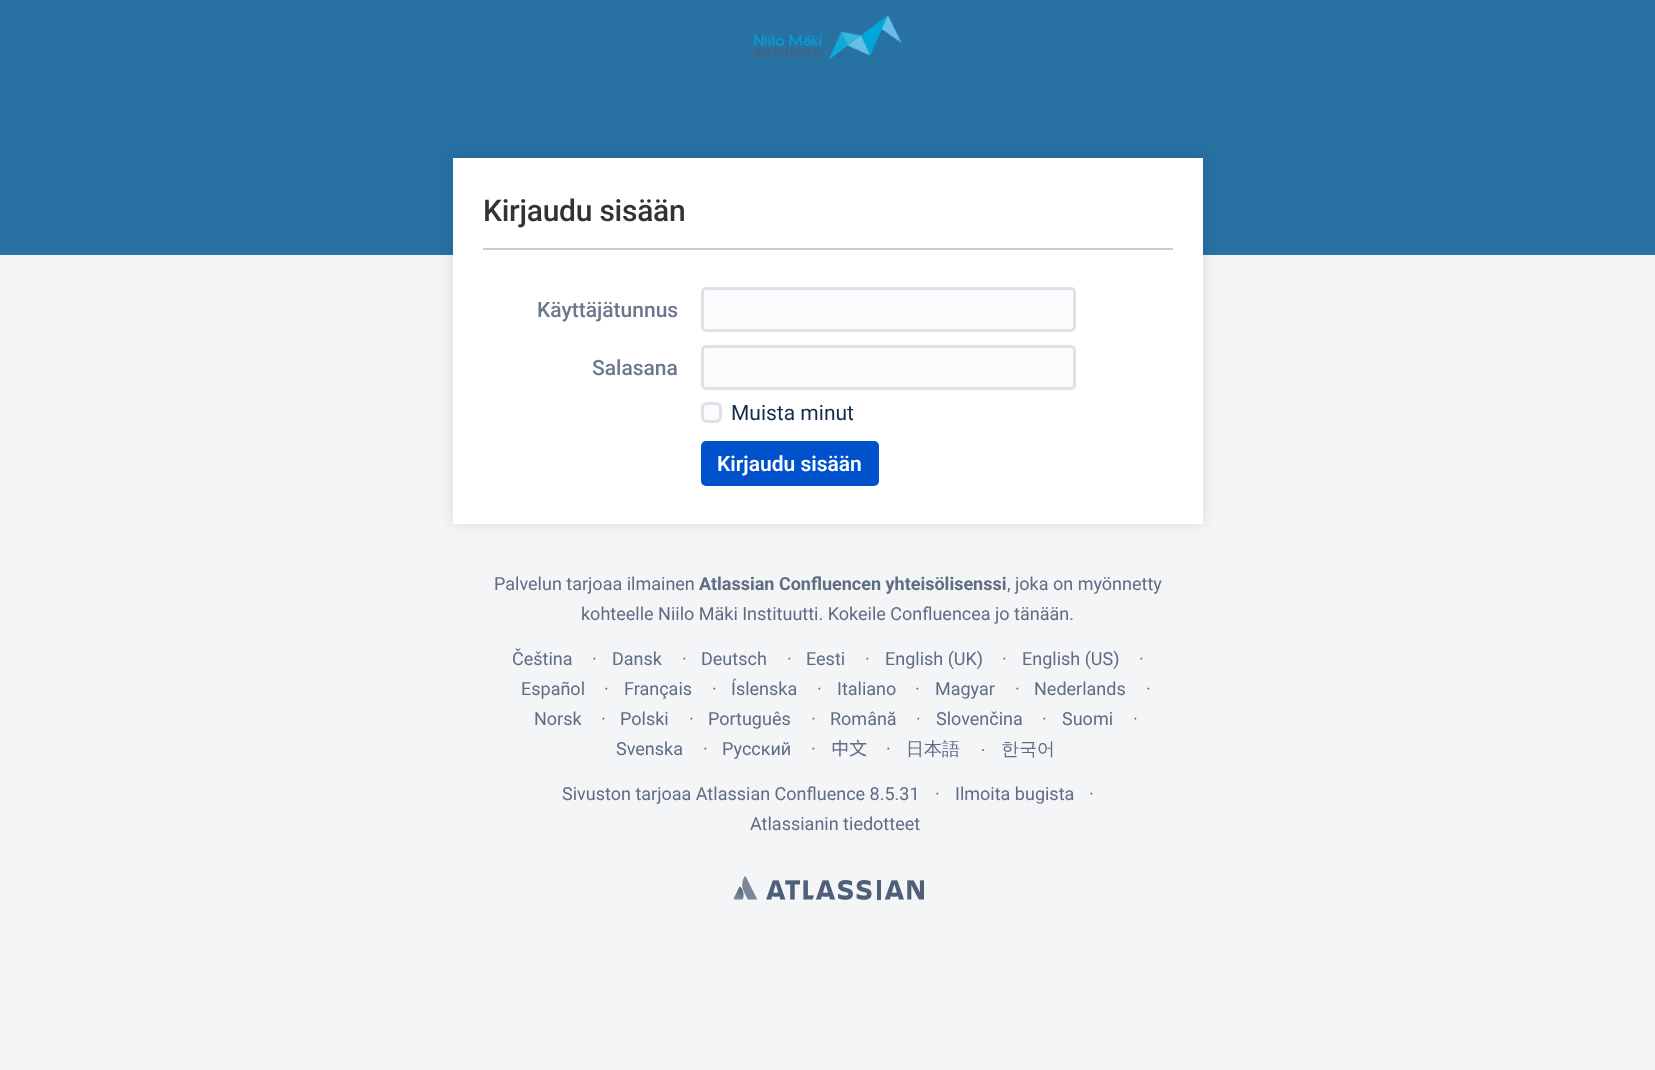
async function draw(canvas) {
  canvas.width = 1655
  canvas.height = 1070
  const ctx = canvas.getContext('2d')
  ctx.miterLimit = 4
  ctx.fontKerning = 'normal'
  async function loadImage(src) {
    const img = new Image()
    img.src = src
    await img.decode()
    return img
  }

  ctx.fillStyle = '#f4f5f7'
  ctx.fillRect(0, 0, 1655, 1070)
  ctx.fillStyle = '#2771a3'
  ctx.fillRect(0, 0, 1655, 255)
  ctx.drawImage(await loadImage('image0.png'), 754, 15, 148, 45)
  ctx.fillStyle = '#0000001a'
  ctx.filter = 'blur(7.5px)'
  ctx.beginPath()
  ctx.rect(453, 158, 750, 366)
  ctx.fill()
  ctx.filter = 'none'
  ctx.fillStyle = '#fff'
  ctx.fillRect(453, 158, 750, 366)
  ctx.fillStyle = '#ccc'
  ctx.fillRect(483, 248, 690, 2)
  ctx.letterSpacing = '-0.25px'
  ctx.font = '500 30px Roboto'
  ctx.fillStyle = '#333'
  ctx.fillText('Kirjaudu sisään', 483, 221)
  ctx.letterSpacing = '0px'
  ctx.font = '500 21px Roboto'
  ctx.fillStyle = '#6b778c'
  ctx.fillText('Käyttäjätunnus', 537, 317)
  ctx.fillStyle = '#fafbfc'
  ctx.beginPath()
  ctx.roundRect(702.5, 288.5, 372, 42, 3.5)
  ctx.fill()
  ctx.strokeStyle = '#dfe1e6'
  ctx.lineWidth = 3
  ctx.stroke()
  ctx.fillStyle = '#6b778c'
  ctx.fillText('Salasana', 592, 375)
  ctx.fillStyle = '#fafbfc'
  ctx.beginPath()
  ctx.roundRect(702.5, 346.5, 372, 42, 3.5)
  ctx.fill()
  ctx.stroke()
  ctx.beginPath()
  ctx.roundRect(702.5, 403.5, 18, 18, 4.5)
  ctx.fill()
  ctx.stroke()
  ctx.font = '21px Roboto'
  ctx.fillStyle = '#172b4d'
  ctx.fillText('Muista minut', 731, 420)
  ctx.fillStyle = '#0052cc'
  ctx.beginPath()
  ctx.roundRect(701, 441, 178, 45, 5)
  ctx.fill()
  ctx.font = '600 21px Roboto'
  ctx.fillStyle = '#fff'
  ctx.fillText('Kirjaudu sisään', 717, 471)
  ctx.font = '18px Roboto'
  ctx.fillStyle = '#5e6c84'
  ctx.fillText('Palvelun tarjoaa ilmainen', 494, 590)
  ctx.font = 'bold 18px Roboto'
  ctx.fillText('Atlassian Confluencen yhteisölisenssi', 699, 590)
  ctx.font = '18px Roboto'
  ctx.fillText(', joka on myönnetty', 1007, 590)
  ctx.fillText('kohteelle Niilo Mäki Instituutti. Kokeile Confluencea jo tänään.', 581, 620)
  ctx.fillText('Čeština', 512, 665)
  ctx.fillText('·', 592, 665)
  ctx.fillText('Dansk', 612, 665)
  ctx.fillText('·', 682, 665)
  ctx.fillText('Deutsch', 701, 665)
  ctx.fillText('·', 787, 665)
  ctx.fillText('Eesti', 806, 665)
  ctx.fillText('·', 865, 665)
  ctx.fillText('English (UK)', 885, 665)
  ctx.fillText('·', 1002, 665)
  ctx.fillText('English (US)', 1022, 665)
  ctx.fillText('·', 1139, 665)
  ctx.fillText('Español', 521, 695)
  ctx.fillText('·', 604, 695)
  ctx.fillText('Français', 624, 695)
  ctx.fillText('·', 712, 695)
  ctx.fillText('Íslenska', 731, 695)
  ctx.fillText('·', 817, 695)
  ctx.fillText('Italiano', 837, 695)
  ctx.fillText('·', 915, 695)
  ctx.fillText('Magyar', 935, 695)
  ctx.fillText('·', 1015, 695)
  ctx.fillText('Nederlands', 1034, 695)
  ctx.fillText('·', 1146, 695)
  ctx.fillText('Norsk', 534, 725)
  ctx.fillText('·', 601, 725)
  ctx.fillText('Polski', 620, 725)
  ctx.fillText('·', 689, 725)
  ctx.fillText('Português', 708, 725)
  ctx.fillText('·', 811, 725)
  ctx.fillText('Română', 830, 725)
  ctx.fillText('·', 916, 725)
  ctx.fillText('Slovenčina', 936, 725)
  ctx.fillText('·', 1042, 725)
  ctx.fillText('Suomi', 1062, 725)
  ctx.fillText('·', 1133, 725)
  ctx.fillText('Svenska', 616, 755)
  ctx.fillText('·', 703, 755)
  ctx.fillText('Русский', 722, 755)
  ctx.fillText('·', 811, 755)
  ctx.font = '18px Noto Sans CJK SC'
  ctx.fillText('中文', 831, 755)
  ctx.font = '18px Roboto'
  ctx.fillText('·', 886, 755)
  ctx.font = '500 18px WenQuanYi Zen Hei'
  ctx.fillText('日本語', 906, 755)
  ctx.font = '18px Liberation Sans'
  ctx.fillText('·', 980, 755)
  ctx.font = '500 18px WenQuanYi Zen Hei'
  ctx.fillText('한국어', 1001, 755)
  ctx.font = '18px Roboto'
  ctx.fillText('Sivuston tarjoaa Atlassian Confluence 8.5.31', 562, 800)
  ctx.fillText('·', 935, 800)
  ctx.fillText('Ilmoita bugista', 955, 800)
  ctx.fillText('·', 1089, 800)
  ctx.fillText('Atlassianin tiedotteet', 750, 830)
  ctx.drawImage(await loadImage('image1.png'), 734, 876, 190, 24)
}

draw(document.querySelector('canvas'))
